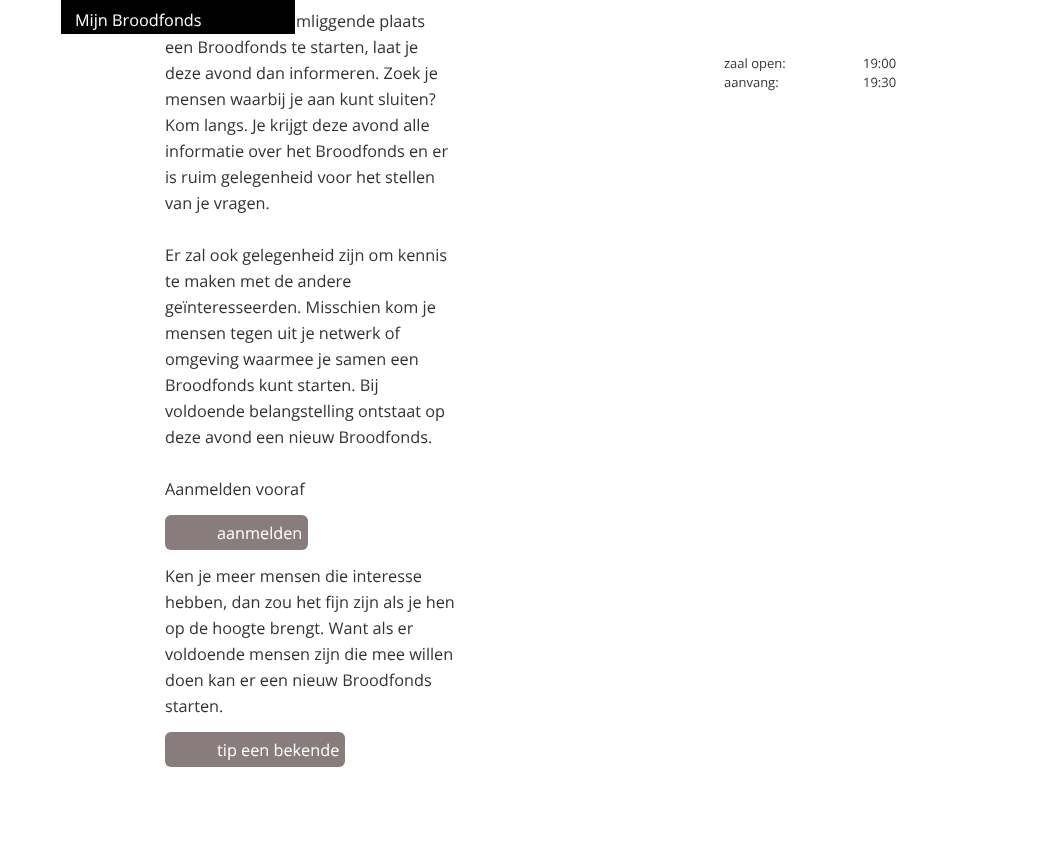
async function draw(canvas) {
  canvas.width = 1061
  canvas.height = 841
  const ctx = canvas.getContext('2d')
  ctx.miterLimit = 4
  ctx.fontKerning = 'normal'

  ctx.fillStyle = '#fff'
  ctx.fillRect(0, 0, 1061, 841)
  ctx.fillStyle = '#000'
  ctx.fillRect(61, 0, 234, 34)
  ctx.font = '16.25px Open Sans'
  ctx.fillStyle = '#fff'
  ctx.fillText('Mijn Broodfonds', 75, 26)
  ctx.fillStyle = '#333'
  ctx.fillText('mliggende plaats', 296, 27)
  ctx.fillText('een Broodfonds te starten, laat je', 165, 53)
  ctx.fillText('deze avond dan informeren. Zoek je', 165, 79)
  ctx.fillText('mensen waarbij je aan kunt sluiten?', 165, 105)
  ctx.fillText('Kom langs. Je krijgt deze avond alle', 165, 131)
  ctx.fillText('informatie over het Broodfonds en er', 165, 157)
  ctx.fillText('is ruim gelegenheid voor het stellen', 165, 183)
  ctx.fillText('van je vragen.', 165, 209)
  ctx.fillText('Er zal ook gelegenheid zijn om kennis', 165, 261)
  ctx.fillText('te maken met de andere', 165, 287)
  ctx.fillText('geïnteresseerden. Misschien kom je', 165, 313)
  ctx.fillText('mensen tegen uit je netwerk of', 165, 339)
  ctx.fillText('omgeving waarmee je samen een', 165, 365)
  ctx.fillText('Broodfonds kunt starten. Bij', 165, 391)
  ctx.fillText('voldoende belangstelling ontstaat op', 165, 417)
  ctx.fillText('deze avond een nieuw Broodfonds.', 165, 443)
  ctx.fillText('Aanmelden vooraf', 165, 495)
  ctx.fillStyle = '#897c7c'
  ctx.beginPath()
  ctx.roundRect(165, 515, 143, 35, 6)
  ctx.fill()
  ctx.fillStyle = '#fff'
  ctx.fillText('aanmelden', 217, 539)
  ctx.fillStyle = '#333'
  ctx.fillText('Ken je meer mensen die interesse', 165, 582)
  ctx.fillText('hebben, dan zou het fijn zijn als je hen', 165, 608)
  ctx.fillText('op de hoogte brengt. Want als er', 165, 634)
  ctx.fillText('voldoende mensen zijn die mee willen', 165, 660)
  ctx.fillText('doen kan er een nieuw Broodfonds', 165, 686)
  ctx.fillText('starten.', 165, 712)
  ctx.fillStyle = '#897c7c'
  ctx.beginPath()
  ctx.roundRect(165, 732, 180, 35, 6)
  ctx.fill()
  ctx.fillStyle = '#fff'
  ctx.fillText('tip een bekende', 217, 756)
  ctx.font = '13px Open Sans'
  ctx.fillStyle = '#333'
  ctx.fillText('zaal open:', 724, 68)
  ctx.fillText('19:00', 863, 68)
  ctx.fillText('aanvang:', 724, 87)
  ctx.fillText('19:30', 863, 87)
}

draw(document.querySelector('canvas'))
